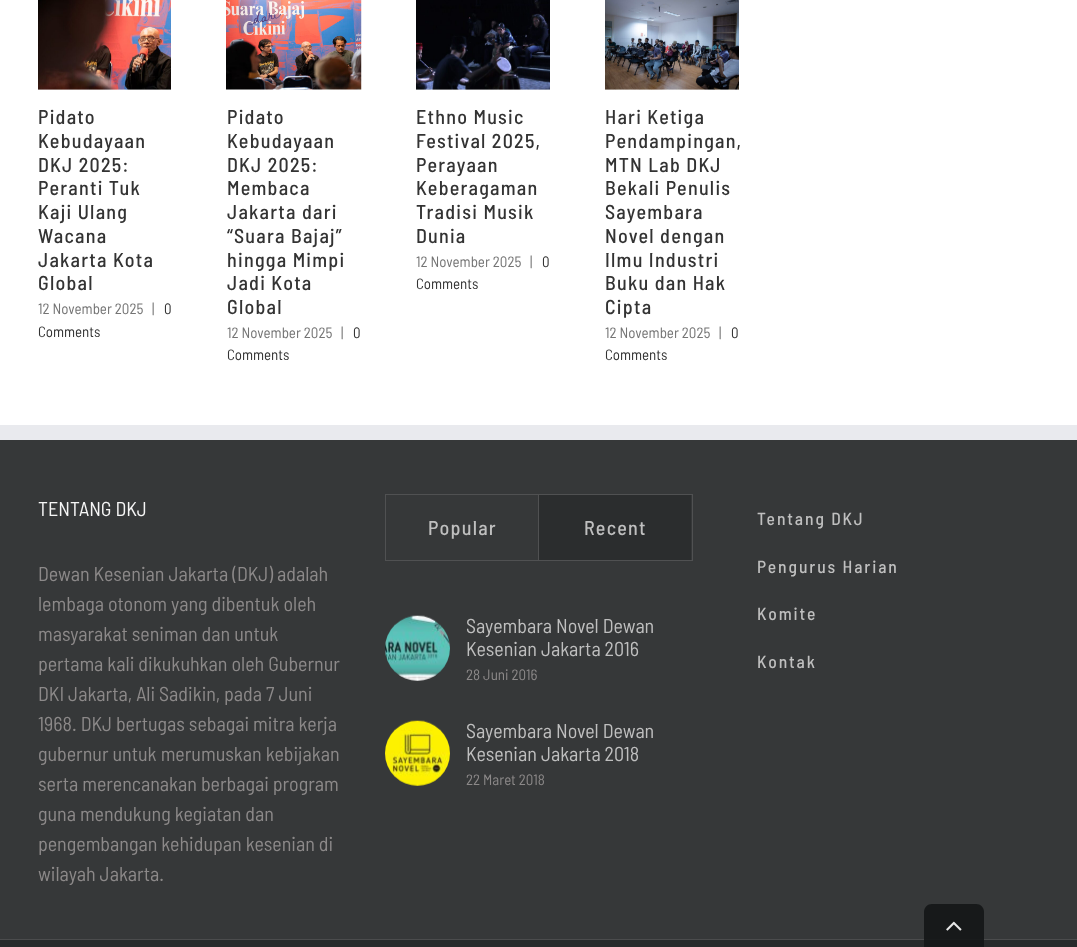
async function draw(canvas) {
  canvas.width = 1077
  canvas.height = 947
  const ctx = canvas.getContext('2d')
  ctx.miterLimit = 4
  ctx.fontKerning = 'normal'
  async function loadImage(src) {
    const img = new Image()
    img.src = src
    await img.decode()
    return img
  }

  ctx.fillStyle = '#fff'
  ctx.fillRect(0, 0, 1077, 947)
  ctx.drawImage(await loadImage('image0.png'), 38, 0, 133, 90)
  ctx.letterSpacing = '1.25px'
  ctx.font = '500 20px Barlow Semi Condensed'
  ctx.fillStyle = '#333'
  ctx.fillText('Pidato', 38, 124)
  ctx.fillText('Kebudayaan', 38, 148)
  ctx.fillText('DKJ 2025:', 38, 172)
  ctx.fillText('Peranti Tuk', 38, 195)
  ctx.fillText('Kaji Ulang', 38, 219)
  ctx.fillText('Wacana', 38, 243)
  ctx.fillText('Jakarta Kota', 38, 267)
  ctx.fillText('Global', 38, 290)
  ctx.letterSpacing = '0px'
  ctx.font = '15px Barlow Semi Condensed'
  ctx.fillStyle = '#747474'
  ctx.fillText('12 November 2025', 38, 314)
  ctx.fillText('|', 152, 314)
  ctx.fillStyle = '#333'
  ctx.fillText('0', 164, 314)
  ctx.fillText('Comments', 38, 337)
  ctx.drawImage(await loadImage('image1.png'), 226, 0, 136, 90)
  ctx.letterSpacing = '1.25px'
  ctx.font = '500 20px Barlow Semi Condensed'
  ctx.fillText('Pidato', 227, 124)
  ctx.fillText('Kebudayaan', 227, 148)
  ctx.fillText('DKJ 2025:', 227, 172)
  ctx.fillText('Membaca', 227, 195)
  ctx.fillText('Jakarta dari', 227, 219)
  ctx.fillText('“Suara Bajaj”', 227, 243)
  ctx.fillText('hingga Mimpi', 227, 267)
  ctx.fillText('Jadi Kota', 227, 290)
  ctx.fillText('Global', 227, 314)
  ctx.letterSpacing = '0px'
  ctx.font = '15px Barlow Semi Condensed'
  ctx.fillStyle = '#747474'
  ctx.fillText('12 November 2025', 227, 338)
  ctx.fillText('|', 341, 338)
  ctx.fillStyle = '#333'
  ctx.fillText('0', 353, 338)
  ctx.fillText('Comments', 227, 360)
  ctx.drawImage(await loadImage('image2.png'), 416, 0, 134, 90)
  ctx.letterSpacing = '1.25px'
  ctx.font = '500 20px Barlow Semi Condensed'
  ctx.fillText('Ethno Music', 416, 124)
  ctx.fillText('Festival 2025,', 416, 148)
  ctx.fillText('Perayaan', 416, 172)
  ctx.fillText('Keberagaman', 416, 195)
  ctx.fillText('Tradisi Musik', 416, 219)
  ctx.fillText('Dunia', 416, 243)
  ctx.letterSpacing = '0px'
  ctx.font = '15px Barlow Semi Condensed'
  ctx.fillStyle = '#747474'
  ctx.fillText('12 November 2025', 416, 267)
  ctx.fillText('|', 530, 267)
  ctx.fillStyle = '#333'
  ctx.fillText('0', 542, 267)
  ctx.fillText('Comments', 416, 289)
  ctx.drawImage(await loadImage('image3.png'), 605, 0, 134, 90)
  ctx.letterSpacing = '1.25px'
  ctx.font = '500 20px Barlow Semi Condensed'
  ctx.fillText('Hari Ketiga', 605, 124)
  ctx.fillText('Pendampingan,', 605, 148)
  ctx.fillText('MTN Lab DKJ', 605, 172)
  ctx.fillText('Bekali Penulis', 605, 195)
  ctx.fillText('Sayembara', 605, 219)
  ctx.fillText('Novel dengan', 605, 243)
  ctx.fillText('Ilmu Industri', 605, 267)
  ctx.fillText('Buku dan Hak', 605, 290)
  ctx.fillText('Cipta', 605, 314)
  ctx.letterSpacing = '0px'
  ctx.font = '15px Barlow Semi Condensed'
  ctx.fillStyle = '#747474'
  ctx.fillText('12 November 2025', 605, 338)
  ctx.fillText('|', 719, 338)
  ctx.fillStyle = '#333'
  ctx.fillText('0', 731, 338)
  ctx.fillText('Comments', 605, 360)
  ctx.fillStyle = '#363839'
  ctx.fillRect(0, 440, 1077, 499)
  ctx.fillStyle = '#e9eaee'
  ctx.fillRect(0, 425, 1077, 15)
  ctx.font = '20px Barlow Semi Condensed'
  ctx.fillStyle = '#f6f6f6'
  ctx.fillText('TENTANG DKJ', 38, 516)
  ctx.fillStyle = '#8c8989'
  ctx.fillText('Dewan Kesenian Jakarta (DKJ) adalah', 38, 581)
  ctx.fillText('lembaga otonom yang dibentuk oleh', 38, 611)
  ctx.fillText('masyarakat seniman dan untuk', 38, 641)
  ctx.fillText('pertama kali dikukuhkan oleh Gubernur', 38, 671)
  ctx.fillText('DKI Jakarta, Ali Sadikin, pada 7 Juni', 38, 701)
  ctx.fillText('1968. DKJ bertugas sebagai mitra kerja', 38, 731)
  ctx.fillText('gubernur untuk merumuskan kebijakan', 38, 761)
  ctx.fillText('serta merencanakan berbagai program', 38, 791)
  ctx.fillText('guna mendukung kegiatan dan', 38, 821)
  ctx.fillText('pengembangan kehidupan kesenian di', 38, 851)
  ctx.fillText('wilayah Jakarta.', 38, 881)
  ctx.strokeStyle = '#505152'
  ctx.strokeRect(385.5, 494.5, 307, 66)
  ctx.fillStyle = '#505152'
  ctx.fillRect(538, 495, 1, 65)
  ctx.letterSpacing = '1.25px'
  ctx.font = '500 20px Barlow Semi Condensed'
  ctx.fillStyle = '#bfbfbf'
  ctx.fillText('Popular', 428, 535)
  ctx.fillStyle = '#2b2d2e'
  ctx.fillRect(539, 495, 152, 65)
  ctx.fillStyle = '#bfbfbf'
  ctx.fillText('Recent', 584, 535)
  ctx.drawImage(await loadImage('image4.png'), 385, 615, 65, 66)
  ctx.letterSpacing = '0px'
  ctx.font = '20px Barlow Semi Condensed'
  ctx.fillText('Sayembara Novel Dewan', 466, 633)
  ctx.fillText('Kesenian Jakarta 2016', 466, 656)
  ctx.font = '15px Barlow Semi Condensed'
  ctx.fillStyle = '#8c8989'
  ctx.fillText('28 Juni 2016', 466, 680)
  ctx.drawImage(await loadImage('image5.png'), 385, 720, 65, 66)
  ctx.font = '20px Barlow Semi Condensed'
  ctx.fillStyle = '#bfbfbf'
  ctx.fillText('Sayembara Novel Dewan', 466, 738)
  ctx.fillText('Kesenian Jakarta 2018', 466, 761)
  ctx.font = '15px Barlow Semi Condensed'
  ctx.fillStyle = '#8c8989'
  ctx.fillText('22 Maret 2018', 466, 785)
  ctx.letterSpacing = '1.9px'
  ctx.font = '500 17.5px Barlow Semi Condensed'
  ctx.fillStyle = '#bfbfbf'
  ctx.fillText('Tentang DKJ', 757, 525)
  ctx.fillText('Pengurus Harian', 757, 573)
  ctx.fillText('Komite', 757, 620)
  ctx.fillText('Kontak', 757, 668)
  ctx.fillStyle = '#282a2b'
  ctx.fillRect(0, 940, 1077, 7)
  ctx.fillStyle = '#4b4c4d'
  ctx.fillRect(0, 939, 1077, 1)
  ctx.fillStyle = '#141617e6'
  ctx.beginPath()
  ctx.moveTo(932, 904)
  ctx.lineTo(976, 904)
  ctx.bezierCurveTo(980.5, 904, 984, 907.5, 984, 912)
  ctx.lineTo(984, 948)
  ctx.lineTo(924, 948)
  ctx.lineTo(924, 912)
  ctx.bezierCurveTo(924, 907.5, 927.5, 904, 932, 904)
  ctx.closePath()
  ctx.fill()
  ctx.drawImage(await loadImage('image6.png'), 946, 921, 16, 10)
}

draw(document.querySelector('canvas'))
